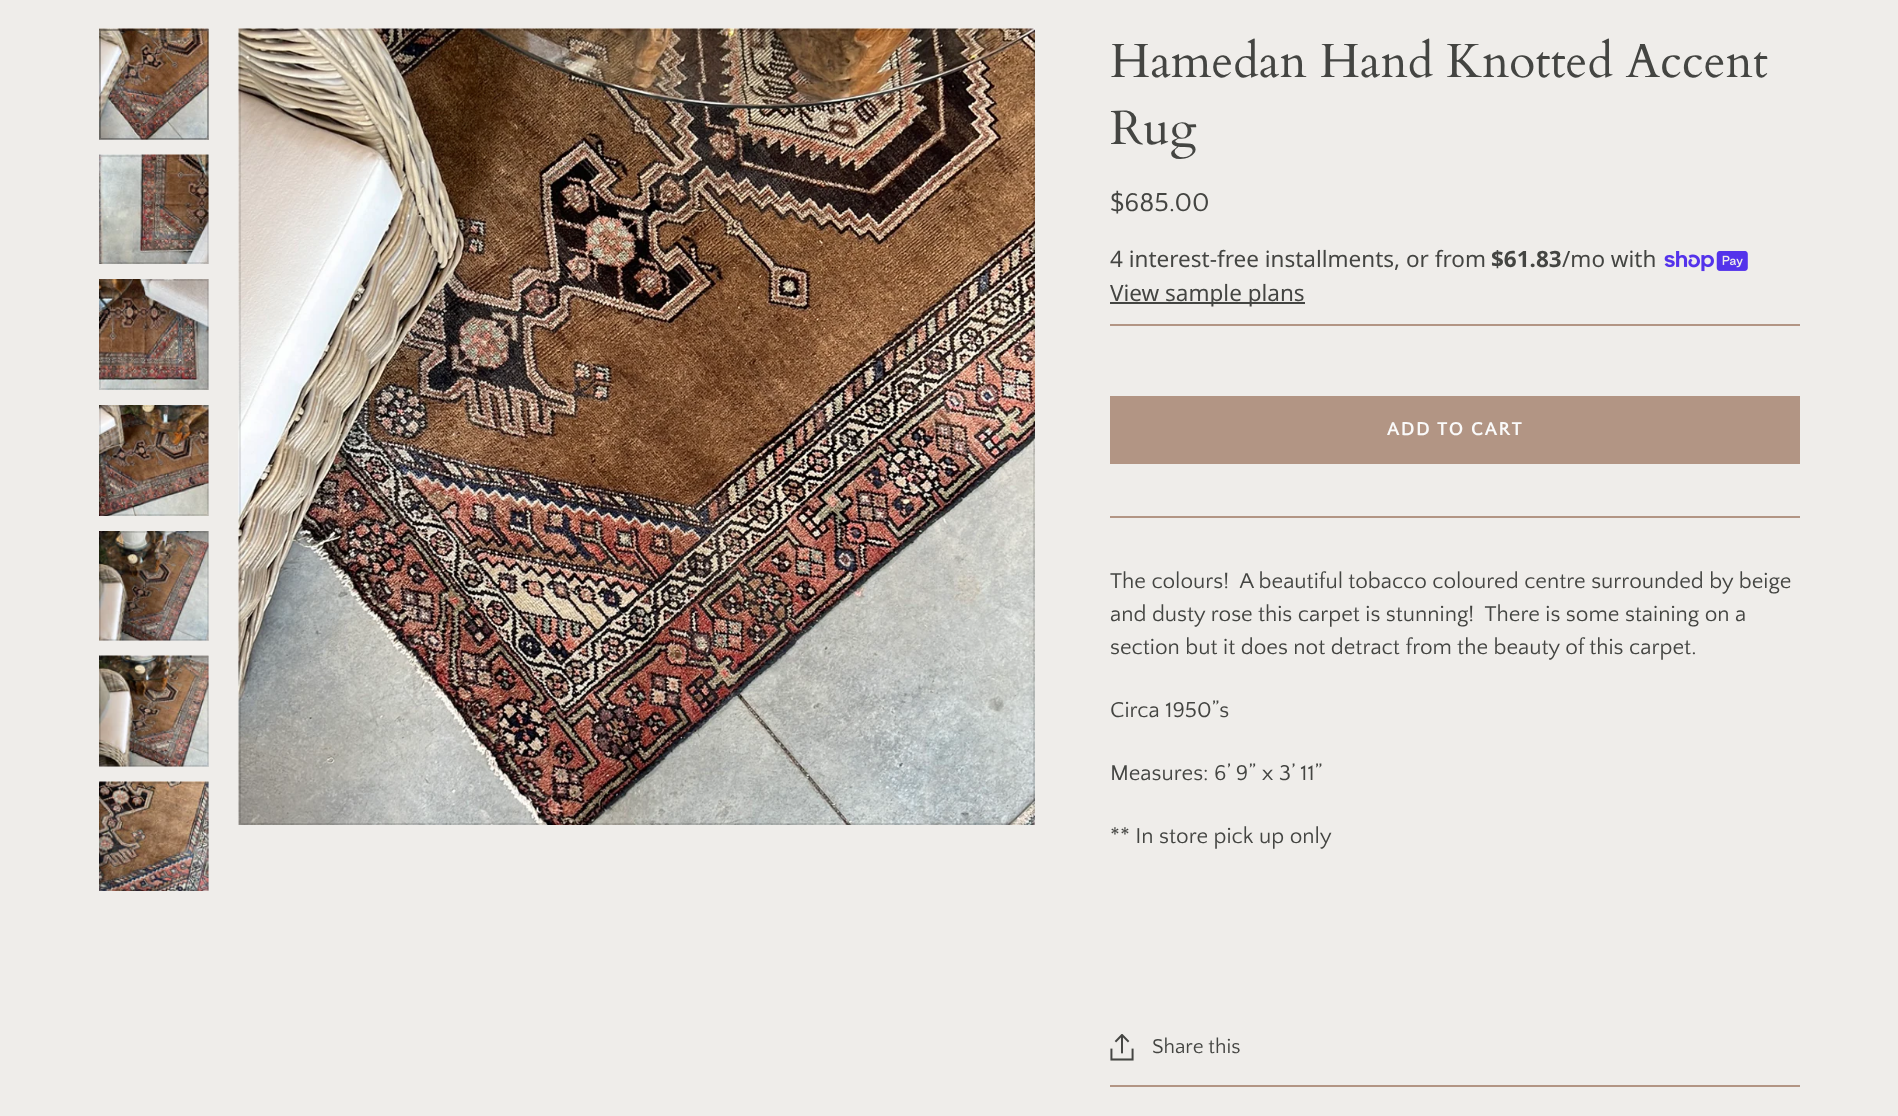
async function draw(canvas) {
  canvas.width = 1898
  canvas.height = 1116
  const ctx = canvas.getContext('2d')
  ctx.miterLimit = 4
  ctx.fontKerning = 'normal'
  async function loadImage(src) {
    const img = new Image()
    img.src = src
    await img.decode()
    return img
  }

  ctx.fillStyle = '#efedea'
  ctx.fillRect(0, 0, 1898, 1116)
  ctx.drawImage(await loadImage('image0.png'), 99, 28, 110, 112)
  ctx.strokeStyle = '#0000004d'
  ctx.lineWidth = 2
  ctx.strokeRect(100, 30, 108, 109)
  ctx.drawImage(await loadImage('image1.png'), 99, 154, 110, 110)
  ctx.strokeStyle = '#0000001a'
  ctx.strokeRect(100, 156, 108, 107)
  ctx.drawImage(await loadImage('image2.png'), 99, 279, 110, 111)
  ctx.strokeRect(100, 280, 108, 109)
  ctx.drawImage(await loadImage('image3.png'), 99, 405, 110, 111)
  ctx.strokeRect(100, 406, 108, 109)
  ctx.drawImage(await loadImage('image4.png'), 99, 531, 110, 110)
  ctx.strokeRect(100, 532, 108, 108)
  ctx.drawImage(await loadImage('image5.png'), 99, 655, 110, 112)
  ctx.strokeRect(100, 657, 108, 109)
  ctx.drawImage(await loadImage('image6.png'), 99, 781, 110, 110)
  ctx.strokeRect(100, 783, 108, 107)
  ctx.drawImage(await loadImage('image7.png'), 238, 28, 797, 797)
  ctx.strokeRect(240, 30, 794, 794)
  ctx.font = '48px Cardo'
  ctx.fillStyle = '#444542'
  ctx.fillText('Hamedan Hand Knotted Accent', 1110, 77)
  ctx.fillText('Rug', 1110, 144)
  ctx.fillStyle = '#b29584'
  ctx.fillRect(1110, 324, 690, 2)
  ctx.font = '27px Quattrocento Sans'
  ctx.fillStyle = '#444542'
  ctx.fillText('$685.00', 1110, 211)
  ctx.font = '22.5px Noto Sans'
  ctx.fillText('4 interest-free installments, or from', 1110, 267)
  ctx.font = 'bold 22.5px Noto Sans'
  ctx.fillText('$61.83', 1491, 267)
  ctx.font = '22.5px Noto Sans'
  ctx.fillText('/mo with', 1562, 267)
  ctx.drawImage(await loadImage('image8.png'), 1664, 251, 84, 21)
  ctx.fillRect(1110, 302, 195, 2)
  ctx.fillText('View sample plans', 1110, 301)
  ctx.fillStyle = '#b29584'
  ctx.fillRect(1110, 516, 690, 2)
  ctx.fillRect(1110, 396, 690, 68)
  ctx.letterSpacing = '1.5px'
  ctx.font = 'bold 19.5px Quattrocento Sans'
  ctx.fillStyle = '#fafafa'
  ctx.fillText('ADD TO CART', 1387, 435)
  ctx.letterSpacing = '0px'
  ctx.font = '22.5px Quattrocento Sans'
  ctx.fillStyle = '#444542'
  ctx.fillText('The colours!  A beautiful tobacco coloured centre surrounded by beige', 1110, 588)
  ctx.fillText('and dusty rose this carpet is stunning!  There is some staining on a', 1110, 621)
  ctx.fillText('section but it does not detract from the beauty of this carpet.', 1110, 654)
  ctx.fillText('Circa 1950”s', 1110, 717)
  ctx.fillText('Measures: 6’ 9” x 3’ 11”', 1110, 780)
  ctx.fillText('** In store pick up only', 1110, 843)
  ctx.fillStyle = '#b29584'
  ctx.fillRect(1110, 1085, 690, 2)
  ctx.drawImage(await loadImage('image9.png'), 1110, 1034, 24, 27)
  ctx.font = '21px Quattrocento Sans'
  ctx.fillStyle = '#444542'
  ctx.fillText('Share this', 1152, 1053)
}

draw(document.querySelector('canvas'))
